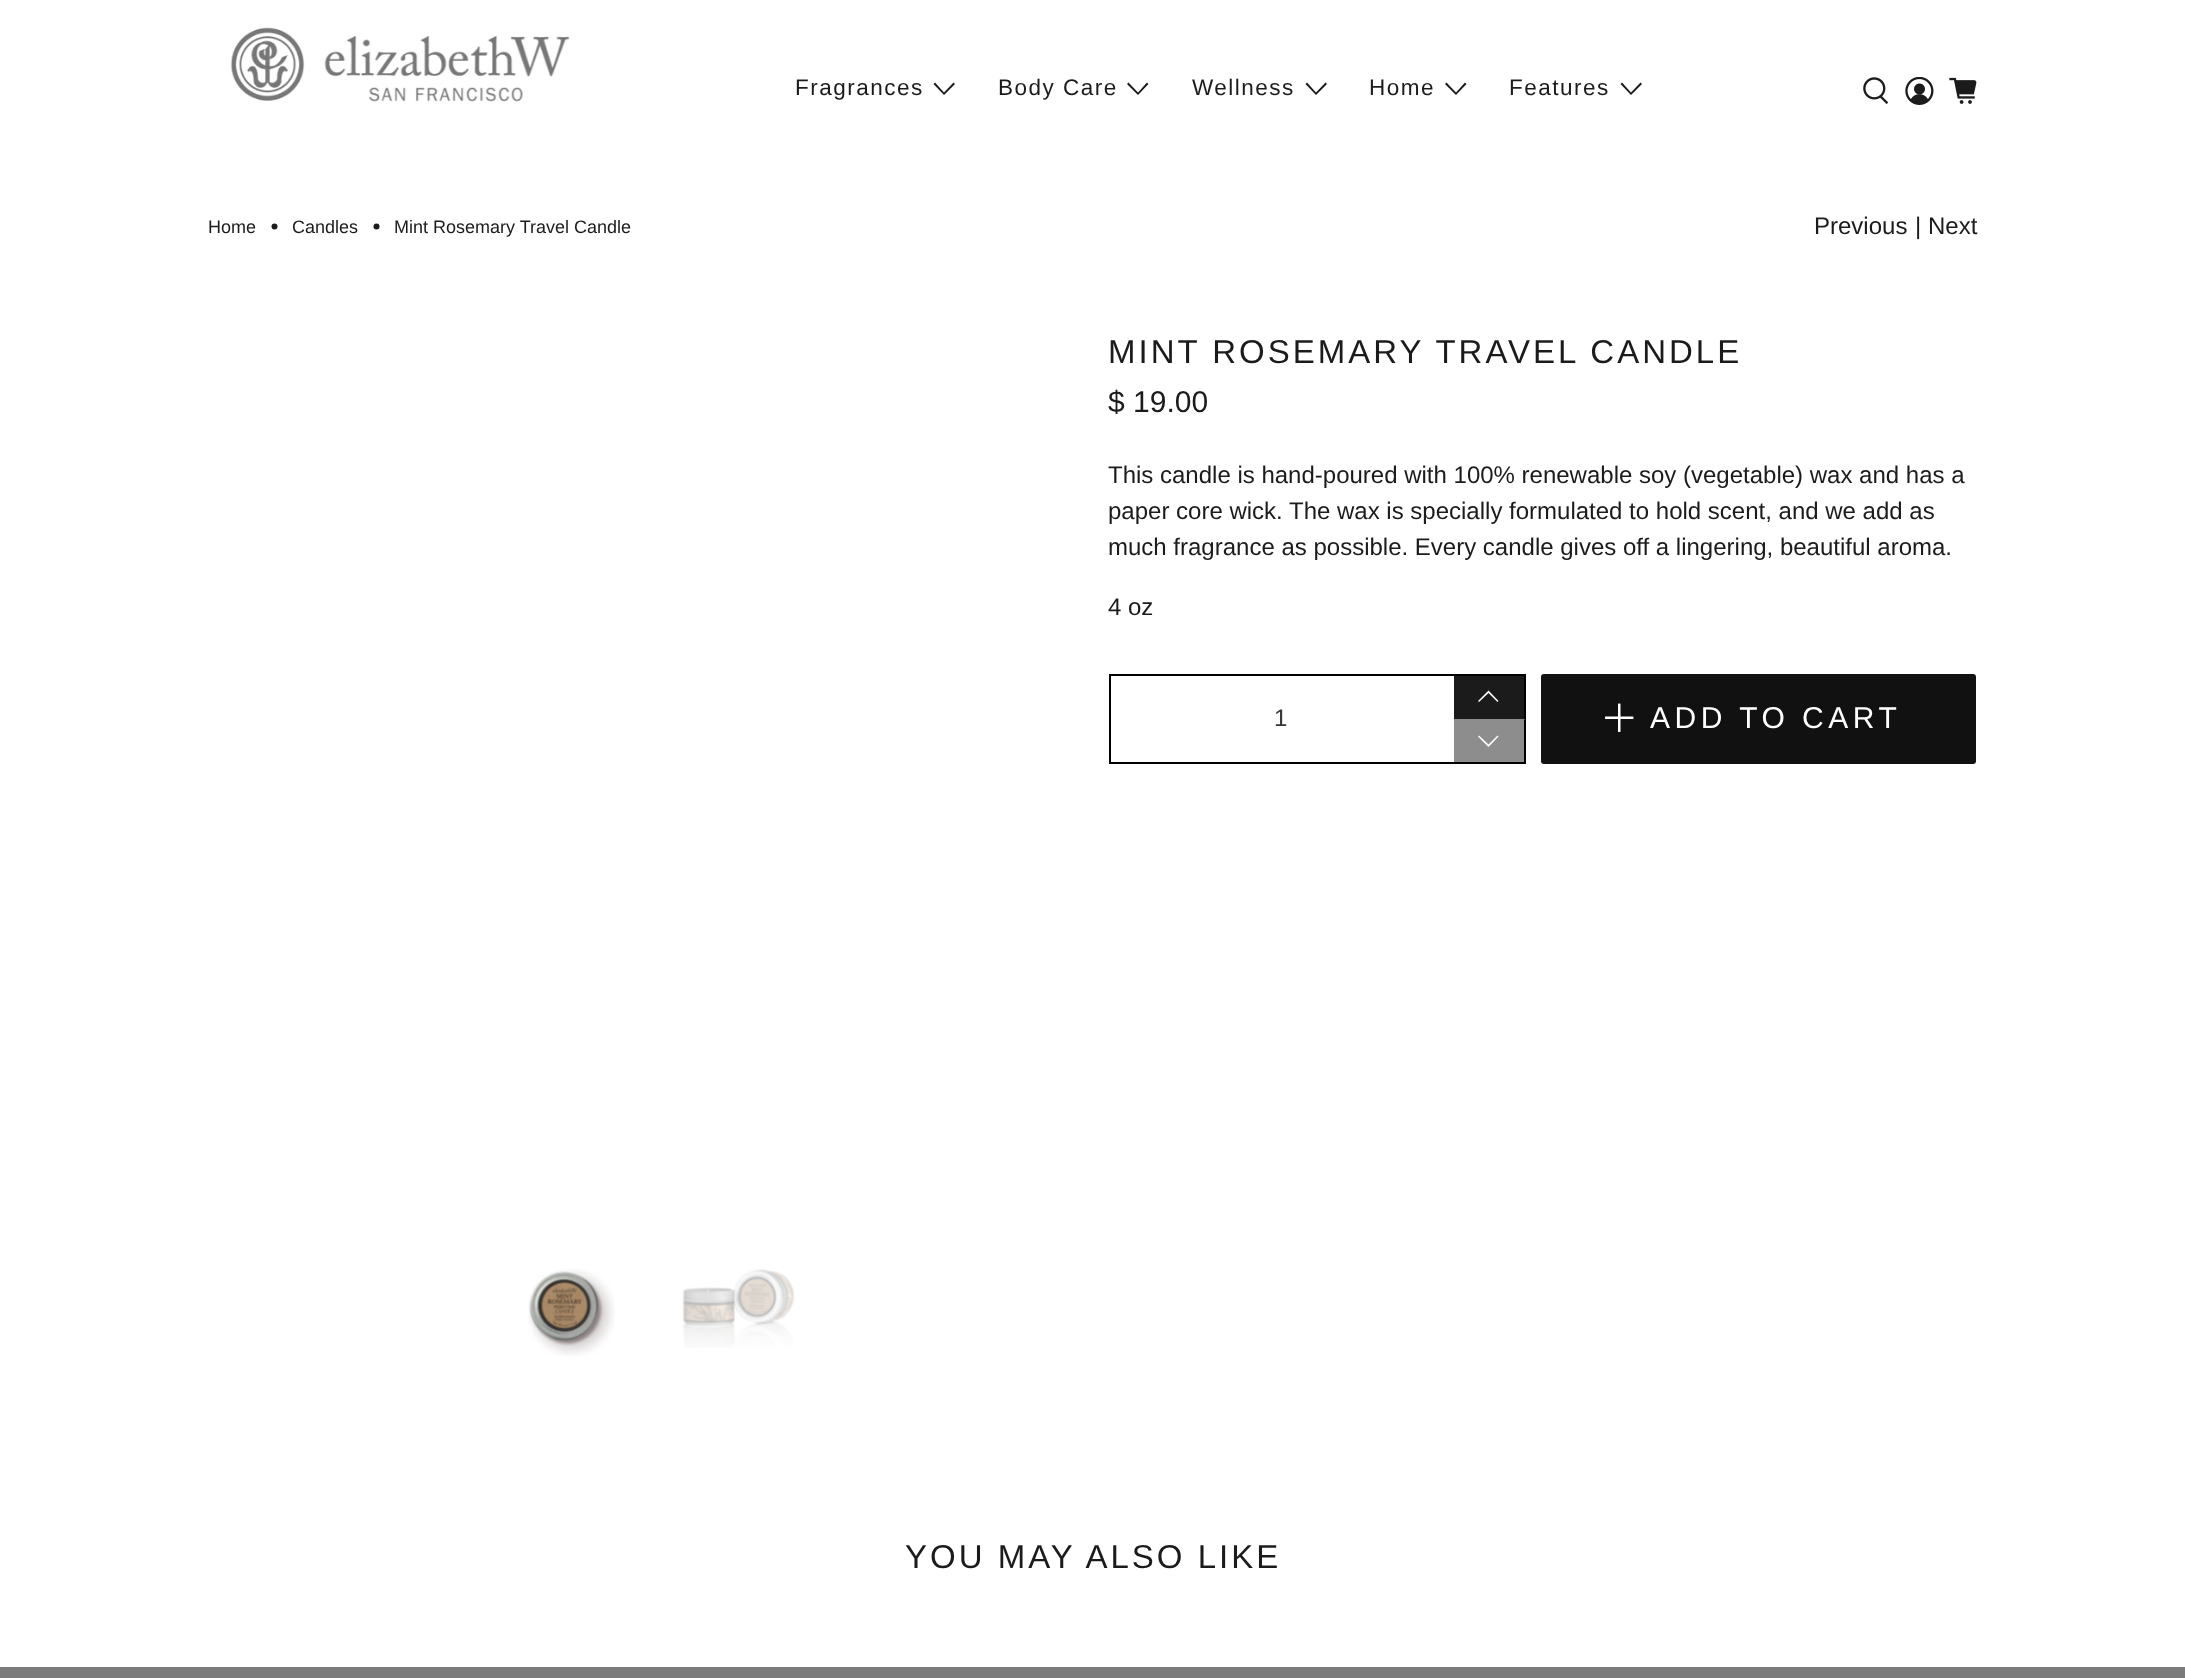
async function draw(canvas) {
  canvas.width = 2185
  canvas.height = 1678
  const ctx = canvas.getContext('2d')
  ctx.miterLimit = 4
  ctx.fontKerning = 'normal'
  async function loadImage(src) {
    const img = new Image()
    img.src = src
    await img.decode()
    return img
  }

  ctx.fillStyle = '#fff'
  ctx.fillRect(0, 0, 2185, 1678)
  ctx.drawImage(await loadImage('image0.png'), 231, 27, 339, 75)
  ctx.letterSpacing = '1.5px'
  ctx.font = '22.5px Liberation Sans'
  ctx.fillStyle = '#1b1b1b'
  ctx.fillText('Fragrances', 795, 95)
  ctx.beginPath()
  ctx.moveTo(944, 95)
  ctx.lineTo(933.5, 84)
  ctx.lineTo(935, 82.5)
  ctx.lineTo(944, 92.5)
  ctx.lineTo(953.5, 82.5)
  ctx.lineTo(955, 84)
  ctx.closePath()
  ctx.fill()
  ctx.fillText('Body Care', 998, 95)
  ctx.beginPath()
  ctx.moveTo(1138, 95)
  ctx.lineTo(1127, 84)
  ctx.lineTo(1128.5, 82.5)
  ctx.lineTo(1138, 92.5)
  ctx.lineTo(1147, 82.5)
  ctx.lineTo(1148.5, 84)
  ctx.closePath()
  ctx.fill()
  ctx.fillText('Wellness', 1192, 95)
  ctx.beginPath()
  ctx.moveTo(1316, 95)
  ctx.lineTo(1305.5, 84)
  ctx.lineTo(1307, 82.5)
  ctx.lineTo(1316, 92.5)
  ctx.lineTo(1325.5, 82.5)
  ctx.lineTo(1327, 84)
  ctx.closePath()
  ctx.fill()
  ctx.fillText('Home', 1369, 95)
  ctx.beginPath()
  ctx.moveTo(1456, 95)
  ctx.lineTo(1445, 84)
  ctx.lineTo(1446.5, 82.5)
  ctx.lineTo(1456, 92.5)
  ctx.lineTo(1465, 82.5)
  ctx.lineTo(1466.5, 84)
  ctx.closePath()
  ctx.fill()
  ctx.fillText('Features', 1509, 95)
  ctx.beginPath()
  ctx.moveTo(1631, 95)
  ctx.lineTo(1620.5, 84)
  ctx.lineTo(1622, 82.5)
  ctx.lineTo(1631, 92.5)
  ctx.lineTo(1640.5, 82.5)
  ctx.lineTo(1642, 84)
  ctx.closePath()
  ctx.fill()
  ctx.drawImage(await loadImage('image1.png'), 1863, 77, 26, 27)
  ctx.drawImage(await loadImage('image2.png'), 1905, 77, 29, 28)
  ctx.drawImage(await loadImage('image3.png'), 1949, 77, 28, 27)
  ctx.letterSpacing = '0px'
  ctx.font = '18px Liberation Sans'
  ctx.fillText('Home', 208, 233)
  ctx.beginPath()
  ctx.arc(274.5, 226.5, 3, 0, 2 * Math.PI)
  ctx.fill()
  ctx.fillText('Candles', 292, 233)
  ctx.beginPath()
  ctx.arc(376.5, 226.5, 3, 0, 2 * Math.PI)
  ctx.fill()
  ctx.fillText('Mint Rosemary Travel Candle', 394, 233)
  ctx.font = '24px Liberation Sans'
  ctx.fillText('Previous', 1814, 234)
  ctx.fillText('|', 1915, 234)
  ctx.fillText('Next', 1928, 234)
  ctx.letterSpacing = '3px'
  ctx.font = '33px Liberation Sans'
  ctx.fillText('MINT ROSEMARY TRAVEL CANDLE', 1108, 363)
  ctx.letterSpacing = '0px'
  ctx.font = '30px Liberation Sans'
  ctx.fillText('$ 19.00', 1108, 412)
  ctx.font = '24px Liberation Sans'
  ctx.fillText('This candle is hand-poured with 100% renewable soy (vegetable) wax and has a', 1108, 483)
  ctx.fillText('paper core wick. The wax is specially formulated to hold scent, and we add as', 1108, 519)
  ctx.fillText('much fragrance as possible. Every candle gives off a lingering, beautiful aroma.', 1108, 555)
  ctx.fillText('4 oz', 1108, 615)
  ctx.fillStyle = '#000'
  ctx.fillRect(1109, 674, 417, 2)
  ctx.fillRect(1109, 762, 345, 2)
  ctx.fillRect(1109, 674, 2, 90)
  ctx.fillStyle = '#363636'
  ctx.fillText('1', 1274, 726)
  ctx.fillStyle = '#1b1b1b'
  ctx.fillRect(1454, 676, 70, 43)
  ctx.fillStyle = '#8d8d8d'
  ctx.fillRect(1454, 719, 71, 43)
  ctx.fillStyle = '#000'
  ctx.beginPath()
  ctx.moveTo(1526, 718)
  ctx.lineTo(1526, 764)
  ctx.lineTo(1524, 762)
  ctx.lineTo(1524, 720)
  ctx.closePath()
  ctx.fill()
  ctx.fillRect(1524, 674, 2, 45)
  ctx.fillStyle = '#fff'
  ctx.beginPath()
  ctx.moveTo(1497.5, 702)
  ctx.lineTo(1488.5, 693)
  ctx.lineTo(1479, 702)
  ctx.lineTo(1478, 701)
  ctx.lineTo(1488.5, 690.5)
  ctx.lineTo(1498.5, 701)
  ctx.closePath()
  ctx.fill()
  ctx.fillStyle = '#000'
  ctx.fillRect(1454, 762, 72, 2)
  ctx.fillStyle = '#fff'
  ctx.beginPath()
  ctx.moveTo(1488.5, 747)
  ctx.lineTo(1478, 736.5)
  ctx.lineTo(1479, 735.5)
  ctx.lineTo(1488.5, 744.5)
  ctx.lineTo(1497.5, 735.5)
  ctx.lineTo(1498.5, 736.5)
  ctx.closePath()
  ctx.fill()
  ctx.fillStyle = '#111'
  ctx.beginPath()
  ctx.roundRect(1541, 674, 435, 90, 3)
  ctx.fill()
  ctx.drawImage(await loadImage('image4.png'), 1605, 703, 29, 29)
  ctx.letterSpacing = '4.5px'
  ctx.font = '30px Liberation Sans'
  ctx.fillStyle = '#fff'
  ctx.fillText('ADD TO CART', 1650, 728)
  ctx.drawImage(await loadImage('image5.png'), 528, 1269, 87, 87)
  ctx.drawImage(await loadImage('image6.png'), 682, 1269, 112, 79)
  ctx.letterSpacing = '3px'
  ctx.font = '33px Liberation Sans'
  ctx.fillStyle = '#1b1b1b'
  ctx.fillText('YOU MAY ALSO LIKE', 905, 1568)
  ctx.fillStyle = '#7b7b7b'
  ctx.fillRect(0, 1667, 2185, 11)
}

draw(document.querySelector('canvas'))
